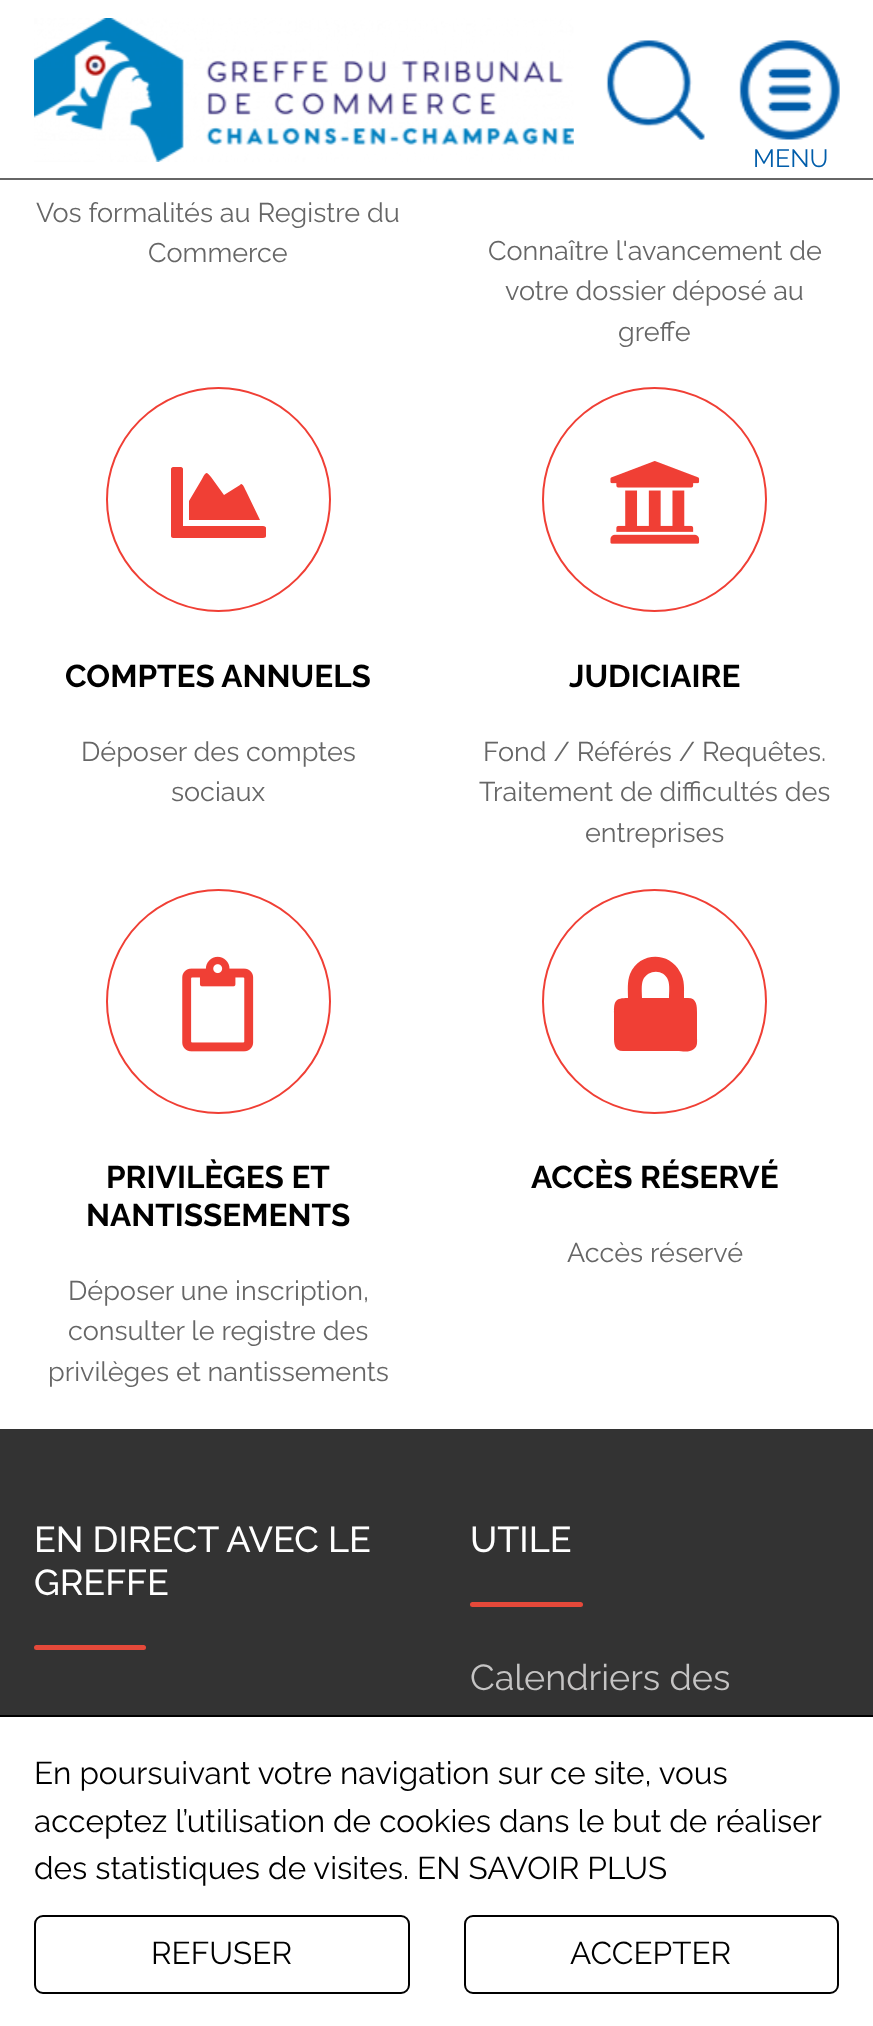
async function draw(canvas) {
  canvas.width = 873
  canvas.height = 2026
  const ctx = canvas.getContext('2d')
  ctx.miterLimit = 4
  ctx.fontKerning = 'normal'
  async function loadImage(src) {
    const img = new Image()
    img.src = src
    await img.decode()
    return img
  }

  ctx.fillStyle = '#fff'
  ctx.fillRect(0, 0, 873, 2026)
  ctx.fillStyle = '#666'
  ctx.fillRect(0, 178, 873, 2)
  ctx.drawImage(await loadImage('image0.png'), 34, 18, 540, 144)
  ctx.drawImage(await loadImage('image1.png'), 606, 40, 99, 100)
  ctx.drawImage(await loadImage('image2.png'), 739, 40, 101, 100)
  ctx.font = '25px Raleway'
  ctx.fillStyle = '#005daa'
  ctx.fillText('MENU', 753, 167)
  ctx.font = '27px Raleway'
  ctx.fillStyle = '#666'
  ctx.fillText('Vos formalités au Registre du', 36, 222)
  ctx.fillText('Commerce', 148, 262)
  ctx.fillText('Connaître l\'avancement de', 488, 260)
  ctx.fillText('votre dossier déposé au', 505, 300)
  ctx.fillText('greffe', 618, 341)
  ctx.beginPath()
  ctx.arc(218.5, 499.5, 111.5, 0, 2 * Math.PI)
  ctx.strokeStyle = '#f03f35'
  ctx.lineWidth = 2
  ctx.stroke()
  ctx.fillStyle = '#f03f35'
  ctx.beginPath()
  ctx.moveTo(263, 526)
  ctx.bezierCurveTo(265, 526, 266, 527, 266, 528)
  ctx.lineTo(266, 536)
  ctx.bezierCurveTo(266, 537, 265, 538, 263, 538)
  ctx.lineTo(173, 538)
  ctx.bezierCurveTo(172, 538, 171, 537, 171, 536)
  ctx.lineTo(171, 469)
  ctx.bezierCurveTo(171, 468, 172, 467, 173, 467)
  ctx.lineTo(181, 467)
  ctx.bezierCurveTo(182, 467, 183, 468, 183, 469)
  ctx.lineTo(183, 526)
  ctx.closePath()
  ctx.moveTo(240, 485)
  ctx.bezierCurveTo(242, 482, 244, 487, 246, 491)
  ctx.lineTo(260, 520)
  ctx.lineTo(189, 520)
  ctx.lineTo(189, 501)
  ctx.lineTo(202, 479)
  ctx.bezierCurveTo(206, 472, 206, 471, 211, 477)
  ctx.lineTo(224, 495)
  ctx.closePath()
  ctx.fill()
  ctx.font = 'bold 31.5px Raleway'
  ctx.fillStyle = '#000'
  ctx.fillText('COMPTES ANNUELS', 65, 687)
  ctx.font = '27px Raleway'
  ctx.fillStyle = '#666'
  ctx.fillText('Déposer des comptes', 81, 761)
  ctx.fillText('sociaux', 171, 801)
  ctx.beginPath()
  ctx.arc(654.5, 499.5, 111.5, 0, 2 * Math.PI)
  ctx.stroke()
  ctx.drawImage(await loadImage('image3.png'), 610, 461, 90, 83)
  ctx.font = 'bold 31.5px Raleway'
  ctx.fillStyle = '#000'
  ctx.fillText('JUDICIAIRE', 569, 687)
  ctx.font = '27px Raleway'
  ctx.fillStyle = '#666'
  ctx.fillText('Fond / Référés / Requêtes.', 483, 761)
  ctx.fillText('Traitement de difficultés des', 479, 801)
  ctx.fillText('entreprises', 585, 842)
  ctx.beginPath()
  ctx.arc(218.5, 1001.5, 111.5, 0, 2 * Math.PI)
  ctx.stroke()
  ctx.drawImage(await loadImage('image4.png'), 182, 956, 72, 96)
  ctx.font = 'bold 31.5px Raleway'
  ctx.fillStyle = '#000'
  ctx.fillText('PRIVILÈGES ET', 106, 1188)
  ctx.fillText('NANTISSEMENTS', 86, 1226)
  ctx.font = '27px Raleway'
  ctx.fillStyle = '#666'
  ctx.fillText('Déposer une inscription,', 68, 1300)
  ctx.fillText('consulter le registre des', 68, 1340)
  ctx.fillText('privilèges et nantissements', 48, 1381)
  ctx.beginPath()
  ctx.arc(654.5, 1001.5, 111.5, 0, 2 * Math.PI)
  ctx.stroke()
  ctx.fillStyle = '#f03f35'
  ctx.beginPath()
  ctx.moveTo(688, 998)
  ctx.bezierCurveTo(697, 998, 697, 1006, 697, 1013)
  ctx.lineTo(697, 1037)
  ctx.bezierCurveTo(697, 1041, 698, 1046, 694, 1049)
  ctx.bezierCurveTo(689, 1053, 682, 1051, 677, 1051)
  ctx.lineTo(623, 1051)
  ctx.bezierCurveTo(614, 1051, 614, 1043, 614, 1037)
  ctx.lineTo(614, 1013)
  ctx.bezierCurveTo(614, 1001, 615, 998, 628, 998)
  ctx.bezierCurveTo(628, 990, 627, 982, 630, 974)
  ctx.bezierCurveTo(639, 952, 669, 951, 680, 972)
  ctx.bezierCurveTo(685, 980, 684, 989, 684, 998)
  ctx.closePath()
  ctx.moveTo(669, 998)
  ctx.bezierCurveTo(669, 993, 670, 985, 668, 980)
  ctx.bezierCurveTo(664, 969, 648, 969, 643, 980)
  ctx.bezierCurveTo(641, 985, 642, 993, 642, 998)
  ctx.closePath()
  ctx.fill()
  ctx.font = 'bold 31.5px Raleway'
  ctx.fillStyle = '#000'
  ctx.fillText('ACCÈS RÉSERVÉ', 531, 1188)
  ctx.font = '27px Raleway'
  ctx.fillStyle = '#666'
  ctx.fillText('Accès réservé', 567, 1262)
  ctx.fillStyle = '#333'
  ctx.fillRect(0, 1429, 873, 286)
  ctx.font = '500 36px Raleway'
  ctx.fillStyle = '#fff'
  ctx.fillText('EN DIRECT AVEC LE', 34, 1552)
  ctx.fillText('GREFFE', 34, 1595)
  ctx.fillStyle = '#e5493a'
  ctx.beginPath()
  ctx.roundRect(34, 1645, 112, 5, 2.5)
  ctx.fill()
  ctx.fillStyle = '#fff'
  ctx.fillText('UTILE', 470, 1552)
  ctx.fillStyle = '#e5493a'
  ctx.beginPath()
  ctx.roundRect(470, 1602, 113, 5, 2.5)
  ctx.fill()
  ctx.font = '36px Raleway'
  ctx.fillStyle = '#c5c4c4'
  ctx.fillText('Calendriers des', 470, 1690)
  ctx.fillStyle = '#000'
  ctx.fillRect(0, 1715, 873, 2)
  ctx.font = '31.5px Raleway'
  ctx.fillText('En poursuivant votre navigation sur ce site, vous', 34, 1784)
  ctx.fillText('acceptez l’utilisation de cookies dans le but de réaliser', 34, 1832)
  ctx.fillText('des statistiques de visites. EN SAVOIR PLUS', 34, 1879)
  ctx.beginPath()
  ctx.roundRect(35, 1916, 374, 77, 8)
  ctx.strokeStyle = '#000'
  ctx.stroke()
  ctx.fillText('REFUSER', 151, 1964)
  ctx.beginPath()
  ctx.roundRect(465, 1916, 373, 77, 8)
  ctx.stroke()
  ctx.fillText('ACCEPTER', 570, 1964)
}

draw(document.querySelector('canvas'))
